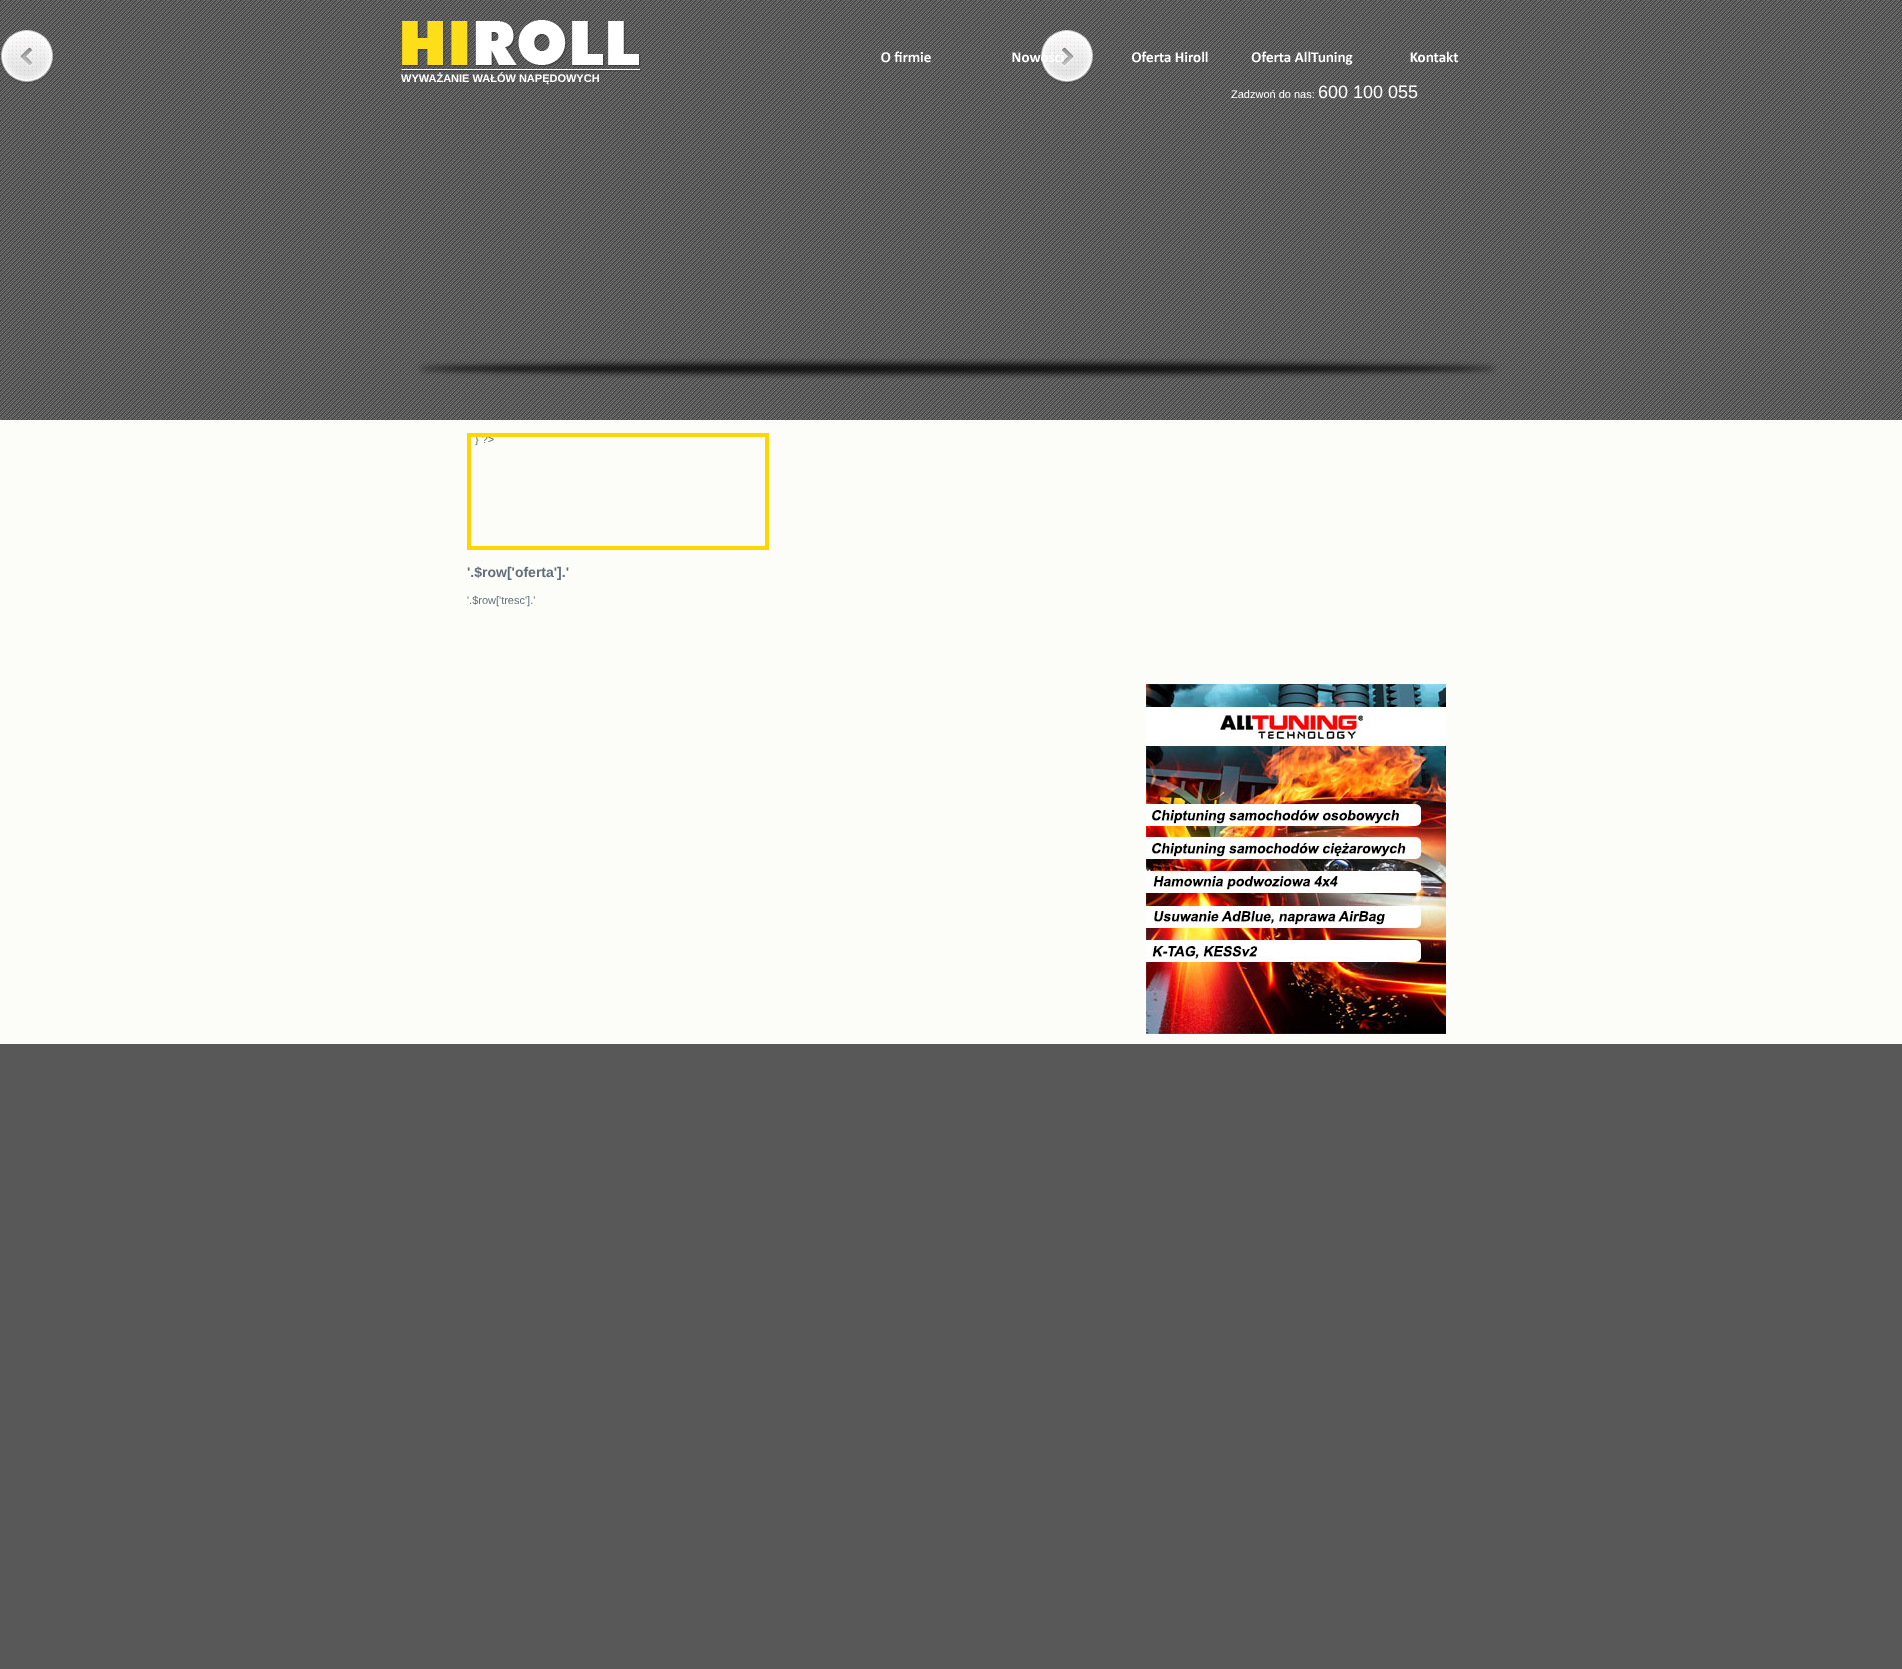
async function draw(canvas) {
  canvas.width = 1902
  canvas.height = 1669
  const ctx = canvas.getContext('2d')
  ctx.miterLimit = 4
  ctx.fontKerning = 'normal'
  async function loadImage(src) {
    const img = new Image()
    img.src = src
    await img.decode()
    return img
  }

  ctx.fillStyle = '#585858'
  ctx.fillRect(0, 0, 1902, 1669)
  ctx.drawImage(await loadImage('image0.png'), 0, 0, 1902, 420)
  ctx.drawImage(await loadImage('image1.png'), 401, 20, 240, 52)
  ctx.drawImage(await loadImage('image2.png'), 881, 51, 50, 12)
  ctx.drawImage(await loadImage('image9.png'), 1041, 30, 52, 54)
  ctx.drawImage(await loadImage('image3.png'), 1012, 52, 52, 11)
  ctx.drawImage(await loadImage('image4.png'), 1132, 51, 76, 12)
  ctx.drawImage(await loadImage('image5.png'), 1251, 51, 102, 14)
  ctx.drawImage(await loadImage('image6.png'), 1410, 51, 48, 12)
  ctx.font = 'bold 11px Liberation Sans'
  ctx.fillStyle = '#fff'
  ctx.fillText('WYWAŻANIE WAŁÓW NAPĘDOWYCH', 401, 82)
  ctx.font = '11px Liberation Sans'
  ctx.fillText('Zadzwoń do nas:', 1231, 98)
  ctx.font = '18px Liberation Sans'
  ctx.fillText('600 100 055', 1318, 98)
  ctx.drawImage(await loadImage('image7.png'), 418, 358, 1079, 21)
  ctx.fillStyle = '#fcfdf8'
  ctx.fillRect(0, 420, 1902, 624)
  ctx.drawImage(await loadImage('image8.png'), 1, 30, 52, 54)
  ctx.font = '11px Liberation Sans'
  ctx.fillStyle = '#636e7b'
  ctx.fillText('} ?>', 475, 443)
  ctx.strokeStyle = '#fed700'
  ctx.lineWidth = 4
  ctx.strokeRect(469, 435, 298, 113)
  ctx.font = 'bold 14px Liberation Sans'
  ctx.fillText('\'.$row[\'oferta\'].\'', 467, 577)
  ctx.font = '11px Liberation Sans'
  ctx.fillText('\'.$row[\'tresc\'].\'', 467, 604)
  ctx.drawImage(await loadImage('image10.png'), 1146, 684, 300, 350)
}

draw(document.querySelector('canvas'))
